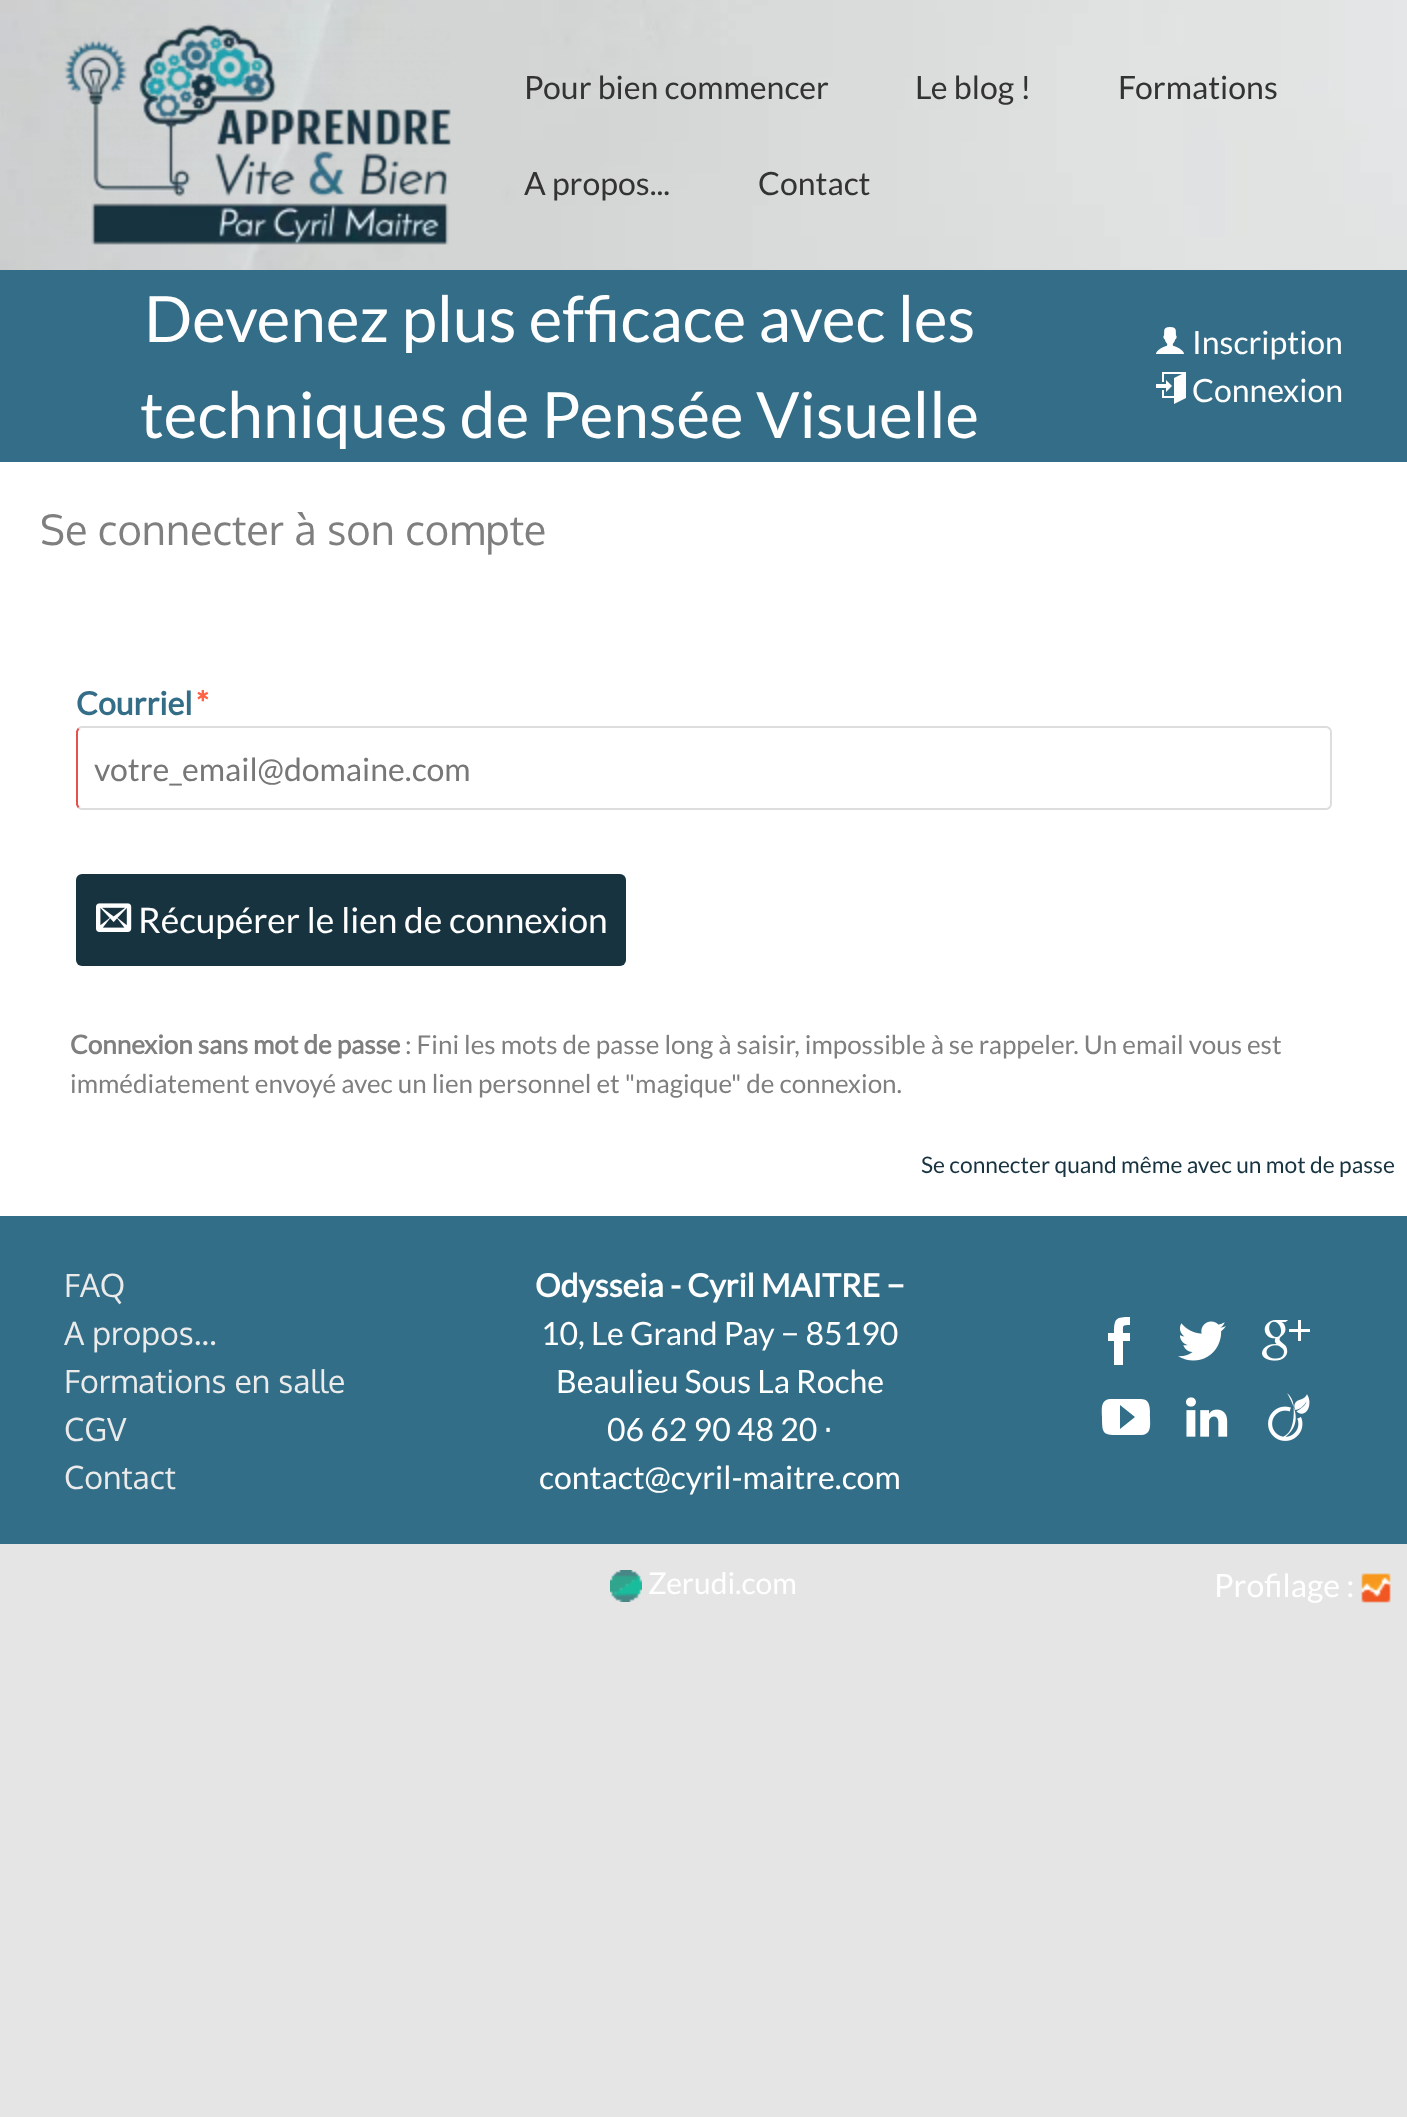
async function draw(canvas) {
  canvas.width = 1407
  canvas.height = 2117
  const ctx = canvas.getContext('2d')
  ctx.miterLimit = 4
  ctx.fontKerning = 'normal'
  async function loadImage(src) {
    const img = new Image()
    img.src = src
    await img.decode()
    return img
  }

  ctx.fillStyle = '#e5e5e5'
  ctx.fillRect(0, 0, 1407, 2117)
  ctx.drawImage(await loadImage('image0.png'), 0, 0, 1407, 270)
  ctx.drawImage(await loadImage('image1.png'), 64, 23, 387, 222)
  ctx.font = '32px Lato'
  ctx.fillStyle = '#333'
  ctx.fillText('Pour bien commencer', 524, 99)
  ctx.fillText('Le blog !', 915, 99)
  ctx.fillText('Formations', 1118, 99)
  ctx.fillText('A propos...', 524, 195)
  ctx.fillText('Contact', 758, 195)
  ctx.fillStyle = '#336d87'
  ctx.fillRect(0, 270, 1407, 192)
  ctx.font = '64px Lato'
  ctx.fillStyle = '#fff'
  ctx.fillText('Devenez plus efficace avec les', 144, 342)
  ctx.fillText('techniques de Pensée Visuelle', 140, 438)
  ctx.drawImage(await loadImage('image2.png'), 1156, 327, 28, 27)
  ctx.font = '32px Lato'
  ctx.fillText('Inscription', 1192, 354)
  ctx.drawImage(await loadImage('image3.png'), 1156, 372, 30, 32)
  ctx.fillText('Connexion', 1192, 402)
  ctx.fillRect(0, 462, 1407, 754)
  ctx.font = '41.6px Oxygen'
  ctx.fillStyle = '#7f7f7f'
  ctx.fillText('Se connecter à son compte', 40, 545)
  ctx.font = 'bold 32px Lato'
  ctx.fillStyle = '#336d87'
  ctx.fillText('Courriel', 76, 715)
  ctx.fillStyle = '#ff6347'
  ctx.fillText('*', 196, 715)
  ctx.beginPath()
  ctx.moveTo(78.5, 728.5)
  ctx.bezierCurveTo(79.5, 727.5, 80.5, 727, 82, 727)
  ctx.lineTo(1326, 727)
  ctx.bezierCurveTo(1327.5, 727, 1328.5, 727.5, 1329.5, 728.5)
  ctx.bezierCurveTo(1330.5, 729.5, 1331, 730.5, 1331, 732)
  ctx.lineTo(1331, 804)
  ctx.bezierCurveTo(1331, 805.5, 1330.5, 806.5, 1329.5, 807.5)
  ctx.bezierCurveTo(1328.5, 808.5, 1327.5, 809, 1326, 809)
  ctx.lineTo(82, 809)
  ctx.bezierCurveTo(80.5, 809, 79.5, 808.5, 78.5, 807.5)
  ctx.strokeStyle = '#ddd'
  ctx.lineWidth = 2
  ctx.stroke()
  ctx.beginPath()
  ctx.moveTo(78.5, 807.5)
  ctx.lineTo(77, 804.5)
  ctx.lineTo(77, 731.5)
  ctx.lineTo(78.5, 728.5)
  ctx.strokeStyle = '#e55151'
  ctx.stroke()
  ctx.font = '32px Lato'
  ctx.fillStyle = '#777'
  ctx.fillText('votre_email@domaine.com', 94, 781)
  ctx.fillStyle = '#183340'
  ctx.beginPath()
  ctx.roundRect(76, 874, 550, 92, 6)
  ctx.fill()
  ctx.drawImage(await loadImage('image4.png'), 96, 903, 36, 29)
  ctx.font = '35.25px Lato'
  ctx.fillStyle = '#fff'
  ctx.fillText('Récupérer le lien de connexion', 138, 933)
  ctx.font = 'bold 26px Lato'
  ctx.fillStyle = '#7f7f7f'
  ctx.fillText('Connexion sans mot de passe', 70, 1054)
  ctx.font = '26px Lato'
  ctx.fillText(': Fini les mots de passe long à saisir, impossible à se rappeler. Un email vous est', 405, 1054)
  ctx.fillText('immédiatement envoyé avec un lien personnel et "magique" de connexion.', 70, 1093)
  ctx.font = '22.75px Lato'
  ctx.fillStyle = '#183340'
  ctx.fillText('Se connecter quand même avec un mot de passe', 921, 1173)
  ctx.fillStyle = '#326e87'
  ctx.fillRect(0, 1216, 1407, 328)
  ctx.font = '32px Oxygen'
  ctx.fillStyle = '#ebebeb'
  ctx.fillText('FAQ', 64, 1297)
  ctx.fillText('A propos...', 64, 1345)
  ctx.fillText('Formations en salle', 64, 1393)
  ctx.fillText('CGV', 64, 1441)
  ctx.fillText('Contact', 64, 1489)
  ctx.font = 'bold 32px Lato'
  ctx.fillStyle = '#fff'
  ctx.fillText('Odysseia - Cyril MAITRE −', 535, 1297)
  ctx.font = '32px Lato'
  ctx.fillText('10, Le Grand Pay − 85190', 541, 1345)
  ctx.fillText('Beaulieu Sous La Roche', 556, 1393)
  ctx.fillText('06 62 90 48 20', 607, 1441)
  ctx.font = '32px DejaVu Sans'
  ctx.fillText('⋅', 823, 1441)
  ctx.font = '32px Lato'
  ctx.fillText('contact@cyril-maitre.com', 539, 1489)
  ctx.beginPath()
  ctx.moveTo(1123, 1365)
  ctx.lineTo(1114, 1365)
  ctx.lineTo(1114, 1341)
  ctx.lineTo(1108, 1341)
  ctx.lineTo(1108, 1333)
  ctx.lineTo(1114, 1333)
  ctx.bezierCurveTo(1114, 1318, 1116, 1317, 1130, 1317)
  ctx.lineTo(1130, 1325)
  ctx.bezierCurveTo(1122, 1325, 1123, 1325, 1123, 1333)
  ctx.lineTo(1130, 1333)
  ctx.lineTo(1130, 1341)
  ctx.lineTo(1123, 1341)
  ctx.closePath()
  ctx.fill()
  ctx.drawImage(await loadImage('image5.png'), 1178, 1321, 48, 40)
  ctx.drawImage(await loadImage('image6.png'), 1262, 1320, 48, 41)
  ctx.beginPath()
  ctx.moveTo(1141, 1399)
  ctx.lineTo(1110, 1399)
  ctx.bezierCurveTo(1100, 1400, 1102, 1410, 1102, 1417)
  ctx.bezierCurveTo(1102, 1435, 1103, 1435, 1121, 1435)
  ctx.lineTo(1142, 1435)
  ctx.bezierCurveTo(1152, 1434, 1150, 1424, 1150, 1417)
  ctx.bezierCurveTo(1150, 1410, 1151, 1399, 1141, 1399)
  ctx.closePath()
  ctx.moveTo(1120, 1429)
  ctx.lineTo(1120, 1405)
  ctx.lineTo(1135, 1417)
  ctx.closePath()
  ctx.fill()
  ctx.drawImage(await loadImage('image7.png'), 1186, 1397, 42, 40)
  ctx.drawImage(await loadImage('image8.png'), 1268, 1393, 42, 48)
  ctx.drawImage(await loadImage('image9.png'), 610, 1570, 32, 32)
  ctx.font = '30px Lato'
  ctx.fillText('Zerudi.com', 648, 1594)
  ctx.font = '32px Lato'
  ctx.fillText('Profilage :', 1214, 1597)
  ctx.drawImage(await loadImage('image10.png'), 1361, 1573, 30, 30)
}

draw(document.querySelector('canvas'))
